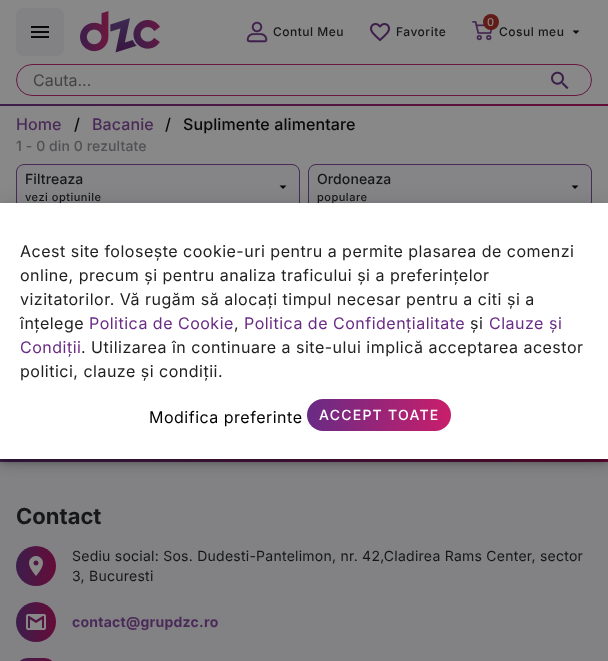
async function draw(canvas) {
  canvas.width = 608
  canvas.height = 661
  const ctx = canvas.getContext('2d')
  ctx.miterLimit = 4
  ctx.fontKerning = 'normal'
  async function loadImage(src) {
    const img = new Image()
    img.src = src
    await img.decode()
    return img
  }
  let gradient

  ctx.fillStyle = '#888'
  ctx.fillRect(0, 0, 608, 661)
  ctx.fillStyle = '#828284'
  ctx.beginPath()
  ctx.roundRect(16, 8, 48, 48, 8)
  ctx.fill()
  ctx.drawImage(await loadImage('image0.png'), 31, 26, 18, 12)
  ctx.drawImage(await loadImage('image1.png'), 80, 11, 80, 42)
  ctx.drawImage(await loadImage('image2.png'), 246, 21, 22, 22)
  ctx.letterSpacing = '0.5px'
  ctx.font = '500 12px Inter'
  ctx.fillStyle = '#151718'
  ctx.fillText('Contul Meu', 273, 36)
  ctx.drawImage(await loadImage('image3.png'), 370, 23, 20, 19)
  ctx.fillText('Favorite', 396, 36)
  ctx.drawImage(await loadImage('image4.png'), 472, 21, 21, 20)
  ctx.fillStyle = '#621c18'
  ctx.beginPath()
  ctx.arc(491, 22, 8, 0, 2 * Math.PI)
  ctx.fill()
  ctx.font = '500 11px Inter'
  ctx.fillStyle = '#878788'
  ctx.fillText('0', 487, 26)
  ctx.font = '500 12px Inter'
  ctx.fillStyle = '#151718'
  ctx.fillText('Cosul meu', 499, 36)
  ctx.fillStyle = '#090909'
  ctx.beginPath()
  ctx.moveTo(572.5, 30.5)
  ctx.lineTo(576, 34)
  ctx.lineTo(579.5, 30.5)
  ctx.closePath()
  ctx.fill()
  ctx.beginPath()
  ctx.roundRect(16.5, 64.5, 575, 31, 15.5)
  ctx.strokeStyle = '#681840'
  ctx.stroke()
  ctx.letterSpacing = '0px'
  ctx.font = '16px Inter'
  ctx.fillStyle = '#434343'
  ctx.fillText('Cauta...', 33, 86)
  ctx.drawImage(await loadImage('image5.png'), 551, 71, 18, 18)
  gradient = ctx.createLinearGradient(0, 105, 608, 105)
  gradient.addColorStop(0, '#3d1e4b')
  gradient.addColorStop(1, '#650c38')
  ctx.fillStyle = gradient
  ctx.fillRect(0, 104, 608, 2)
  ctx.letterSpacing = '0.1px'
  ctx.font = '500 16px Inter'
  ctx.fillStyle = '#4a2a58'
  ctx.fillText('Home', 16, 130)
  ctx.fillStyle = '#090909'
  ctx.fillText('/', 74, 130)
  ctx.fillStyle = '#4a2a58'
  ctx.fillText('Bacanie', 92, 130)
  ctx.fillStyle = '#090909'
  ctx.fillText('/', 165, 130)
  ctx.fillText('Suplimente alimentare', 183, 130)
  ctx.font = '500 14px Inter'
  ctx.fillStyle = '#505153'
  ctx.fillText('1 - 0 din 0 rezultate', 16, 151)
  ctx.fillStyle = '#858587'
  ctx.beginPath()
  ctx.roundRect(16.5, 164.5, 283, 45, 7.5)
  ctx.fill()
  ctx.strokeStyle = '#4a2a58'
  ctx.stroke()
  ctx.fillStyle = '#151718'
  ctx.fillText('Filtreaza', 25, 184)
  ctx.letterSpacing = '0.5px'
  ctx.font = '500 11px Inter'
  ctx.fillText('vezi optiunile', 25, 201)
  ctx.fillStyle = '#090909'
  ctx.beginPath()
  ctx.moveTo(279.5, 185.5)
  ctx.lineTo(283, 189)
  ctx.lineTo(286.5, 185.5)
  ctx.closePath()
  ctx.fill()
  ctx.fillStyle = '#858587'
  ctx.beginPath()
  ctx.roundRect(308.5, 164.5, 283, 45, 7.5)
  ctx.fill()
  ctx.stroke()
  ctx.letterSpacing = '0.1px'
  ctx.font = '500 14px Inter'
  ctx.fillStyle = '#151718'
  ctx.fillText('Ordoneaza', 317, 184)
  ctx.letterSpacing = '0.5px'
  ctx.font = '500 11px Inter'
  ctx.fillText('populare', 317, 201)
  ctx.fillStyle = '#090909'
  ctx.beginPath()
  ctx.moveTo(571.5, 185.5)
  ctx.lineTo(575, 189)
  ctx.lineTo(578.5, 185.5)
  ctx.closePath()
  ctx.fill()
  gradient = ctx.createLinearGradient(0, 380, 608, 380)
  gradient.addColorStop(0, '#3d1e4b')
  gradient.addColorStop(1, '#650c38')
  ctx.fillStyle = gradient
  ctx.fillRect(0, 459, 608, 3)
  ctx.fillStyle = '#828284'
  ctx.fillRect(0, 462, 608, 199)
  ctx.fillStyle = '#0000001f'
  ctx.filter = 'blur(9px)'
  ctx.beginPath()
  ctx.rect(0, 204, 608, 256)
  ctx.fill()
  ctx.filter = 'none'
  ctx.fillStyle = '#00000024'
  ctx.filter = 'blur(5px)'
  ctx.beginPath()
  ctx.rect(0, 209, 608, 256)
  ctx.fill()
  ctx.filter = 'none'
  ctx.fillStyle = '#00000033'
  ctx.filter = 'blur(2.5px)'
  ctx.beginPath()
  ctx.rect(1, 207, 606, 254)
  ctx.fill()
  ctx.filter = 'none'
  ctx.fillStyle = '#fff'
  ctx.fillRect(0, 203, 608, 256)
  ctx.font = '16px Inter'
  ctx.fillStyle = '#212121'
  ctx.fillText('Acest site folosește cookie-uri pentru a permite plasarea de comenzi', 20, 257)
  ctx.fillText('online, precum și pentru analiza traficului și a preferințelor', 20, 281)
  ctx.fillText('vizitatorilor. Vă rugăm să alocați timpul necesar pentru a citi și a', 20, 305)
  ctx.fillText('înțelege', 20, 329)
  ctx.fillStyle = '#692b85'
  ctx.fillText('Politica de Cookie', 89, 329)
  ctx.fillStyle = '#212121'
  ctx.fillText(',', 234, 329)
  ctx.fillStyle = '#692b85'
  ctx.fillText('Politica de Confidențialitate', 244, 329)
  ctx.fillStyle = '#212121'
  ctx.fillText('și', 470, 329)
  ctx.fillStyle = '#692b85'
  ctx.fillText('Clauze și', 489, 329)
  ctx.fillText('Condiții', 20, 353)
  ctx.fillStyle = '#212121'
  ctx.fillText('. Utilizarea în continuare a site-ului implică acceptarea acestor', 81, 353)
  ctx.fillText('politici, clauze și condiții.', 20, 377)
  ctx.fillStyle = '#000'
  ctx.fillText('Modifica preferinte', 149, 423)
  gradient = ctx.createLinearGradient(307, 415, 451, 415)
  gradient.addColorStop(0, '#692b85')
  gradient.addColorStop(1, '#c91e6b')
  ctx.fillStyle = gradient
  ctx.beginPath()
  ctx.roundRect(307, 399, 144, 32, 16)
  ctx.fill()
  ctx.letterSpacing = '1.25px'
  ctx.font = '500 14px Inter'
  ctx.fillStyle = '#fff'
  ctx.fillText('ACCEPT TOATE', 319, 420)
  ctx.letterSpacing = '0px'
  ctx.font = 'bold 22px Inter'
  ctx.fillStyle = '#151718'
  ctx.fillText('Contact', 16, 524)
  gradient = ctx.createLinearGradient(16, 566, 56, 566)
  gradient.addColorStop(0, '#3d1e4b')
  gradient.addColorStop(1, '#650c38')
  ctx.fillStyle = gradient
  ctx.beginPath()
  ctx.arc(36, 566, 20, 0, 2 * Math.PI)
  ctx.fill()
  ctx.drawImage(await loadImage('image6.png'), 29, 556, 14, 20)
  ctx.letterSpacing = '0.25px'
  ctx.font = '14px Inter'
  ctx.fillStyle = '#151718'
  ctx.fillText('Sediu social: Sos. Dudesti-Pantelimon, nr. 42,Cladirea Rams Center, sector', 72, 561)
  ctx.fillText('3, Bucuresti', 72, 581)
  gradient = ctx.createLinearGradient(16, 622, 56, 622)
  gradient.addColorStop(0, '#3d1e4b')
  gradient.addColorStop(1, '#650c38')
  ctx.fillStyle = gradient
  ctx.beginPath()
  ctx.arc(36, 622, 20, 0, 2 * Math.PI)
  ctx.fill()
  ctx.drawImage(await loadImage('image7.png'), 26, 614, 20, 16)
  ctx.font = 'bold 14px Inter'
  ctx.fillStyle = '#4a2a58'
  ctx.fillText('contact@grupdzc.ro', 72, 627)
  gradient = ctx.createLinearGradient(16, 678, 56, 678)
  gradient.addColorStop(0, '#3d1e4b')
  gradient.addColorStop(1, '#650c38')
  ctx.fillStyle = gradient
  ctx.beginPath()
  ctx.roundRect(16, 658, 40, 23, 20)
  ctx.fill()
}

draw(document.querySelector('canvas'))
